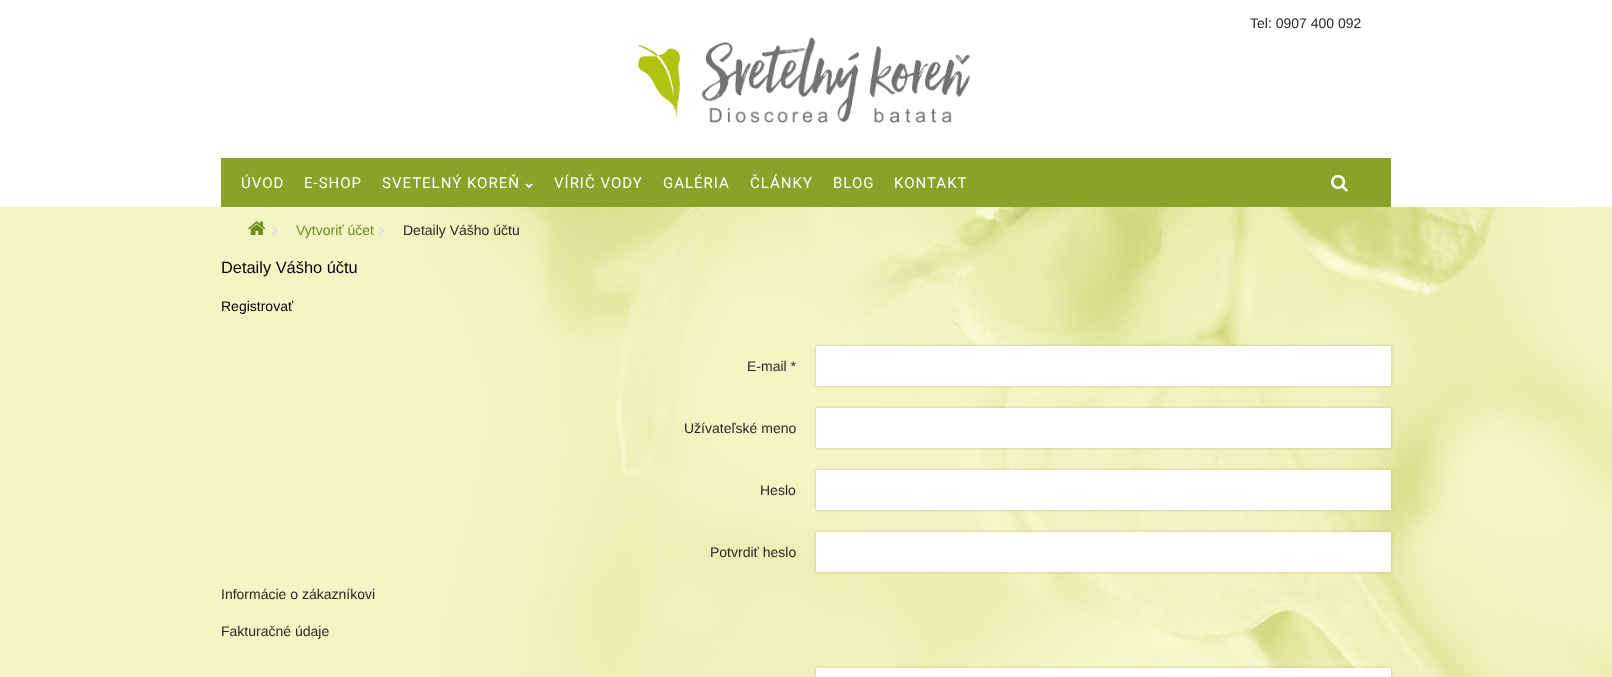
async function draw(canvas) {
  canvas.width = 1612
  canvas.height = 677
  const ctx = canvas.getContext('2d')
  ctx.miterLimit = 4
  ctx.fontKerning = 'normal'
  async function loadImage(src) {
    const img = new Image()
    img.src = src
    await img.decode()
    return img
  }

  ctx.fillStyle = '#fff'
  ctx.fillRect(0, 0, 1612, 677)
  ctx.font = '14px Liberation Sans'
  ctx.fillStyle = '#262626'
  ctx.fillText('Tel: 0907 400 092', 1250, 28)
  ctx.drawImage(await loadImage('image0.png'), 638, 37, 332, 86)
  ctx.fillStyle = '#89a228'
  ctx.fillRect(221, 158, 1170, 49)
  ctx.letterSpacing = '1px'
  ctx.font = '15px Roboto'
  ctx.fillStyle = '#fff'
  ctx.fillText('ÚVOD', 241, 188)
  ctx.fillText('E-SHOP', 304, 188)
  ctx.fillText('SVETELNÝ KOREŇ', 382, 188)
  ctx.drawImage(await loadImage('image1.png'), 525, 183, 8, 6)
  ctx.fillText('VÍRIČ VODY', 554, 188)
  ctx.fillText('GALÉRIA', 663, 188)
  ctx.fillText('ČLÁNKY', 750, 188)
  ctx.fillText('BLOG', 833, 188)
  ctx.fillText('KONTAKT', 894, 188)
  ctx.drawImage(await loadImage('image2.png'), 1331, 174, 17, 18)
  ctx.fillStyle = '#f3f6c4'
  ctx.fillRect(0, 207, 424, 470)
  ctx.drawImage(await loadImage('image3.png'), 424, 207, 1188, 470)
  ctx.drawImage(await loadImage('image4.png'), 248, 221, 18, 14)
  ctx.drawImage(await loadImage('image5.png'), 271, 226, 7, 10)
  ctx.letterSpacing = '0px'
  ctx.font = '14px Liberation Sans'
  ctx.fillStyle = '#6a8b1d'
  ctx.fillText('Vytvoriť účet', 296, 235)
  ctx.drawImage(await loadImage('image5.png'), 378, 226, 7, 10)
  ctx.fillStyle = '#262626'
  ctx.fillText('Detaily Vášho účtu', 403, 235)
  ctx.font = '16.4px Liberation Sans'
  ctx.fillStyle = '#000'
  ctx.fillText('Detaily Vášho účtu', 221, 273)
  ctx.font = '14px Liberation Sans'
  ctx.fillText('Registrovať', 221, 311)
  ctx.fillStyle = '#262626'
  ctx.fillText('E-mail *', 747, 371)
  ctx.fillStyle = '#00000033'
  ctx.filter = 'blur(1.5px)'
  ctx.beginPath()
  ctx.rect(816, 346, 575, 40)
  ctx.fill()
  ctx.filter = 'none'
  ctx.fillStyle = '#fff'
  ctx.fillRect(816, 346, 575, 40)
  ctx.fillStyle = '#262626'
  ctx.fillText('Užívateľské meno', 684, 433)
  ctx.fillStyle = '#00000033'
  ctx.filter = 'blur(1.5px)'
  ctx.beginPath()
  ctx.rect(816, 408, 575, 40)
  ctx.fill()
  ctx.filter = 'none'
  ctx.fillStyle = '#fff'
  ctx.fillRect(816, 408, 575, 40)
  ctx.fillStyle = '#262626'
  ctx.fillText('Heslo', 760, 495)
  ctx.fillStyle = '#00000033'
  ctx.filter = 'blur(1.5px)'
  ctx.beginPath()
  ctx.rect(816, 470, 575, 40)
  ctx.fill()
  ctx.filter = 'none'
  ctx.fillStyle = '#fff'
  ctx.fillRect(816, 470, 575, 40)
  ctx.fillStyle = '#262626'
  ctx.fillText('Potvrdiť heslo', 710, 557)
  ctx.fillStyle = '#00000033'
  ctx.filter = 'blur(1.5px)'
  ctx.beginPath()
  ctx.rect(816, 532, 575, 40)
  ctx.fill()
  ctx.filter = 'none'
  ctx.fillStyle = '#fff'
  ctx.fillRect(816, 532, 575, 40)
  ctx.fillStyle = '#262626'
  ctx.fillText('Informácie o zákazníkovi', 221, 599)
  ctx.fillText('Fakturačné údaje', 221, 636)
  ctx.fillStyle = '#00000033'
  ctx.filter = 'blur(1.5px)'
  ctx.beginPath()
  ctx.rect(816, 668, 575, 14)
  ctx.fill()
  ctx.filter = 'none'
  ctx.fillStyle = '#fff'
  ctx.fillRect(816, 668, 575, 9)
}

draw(document.querySelector('canvas'))
